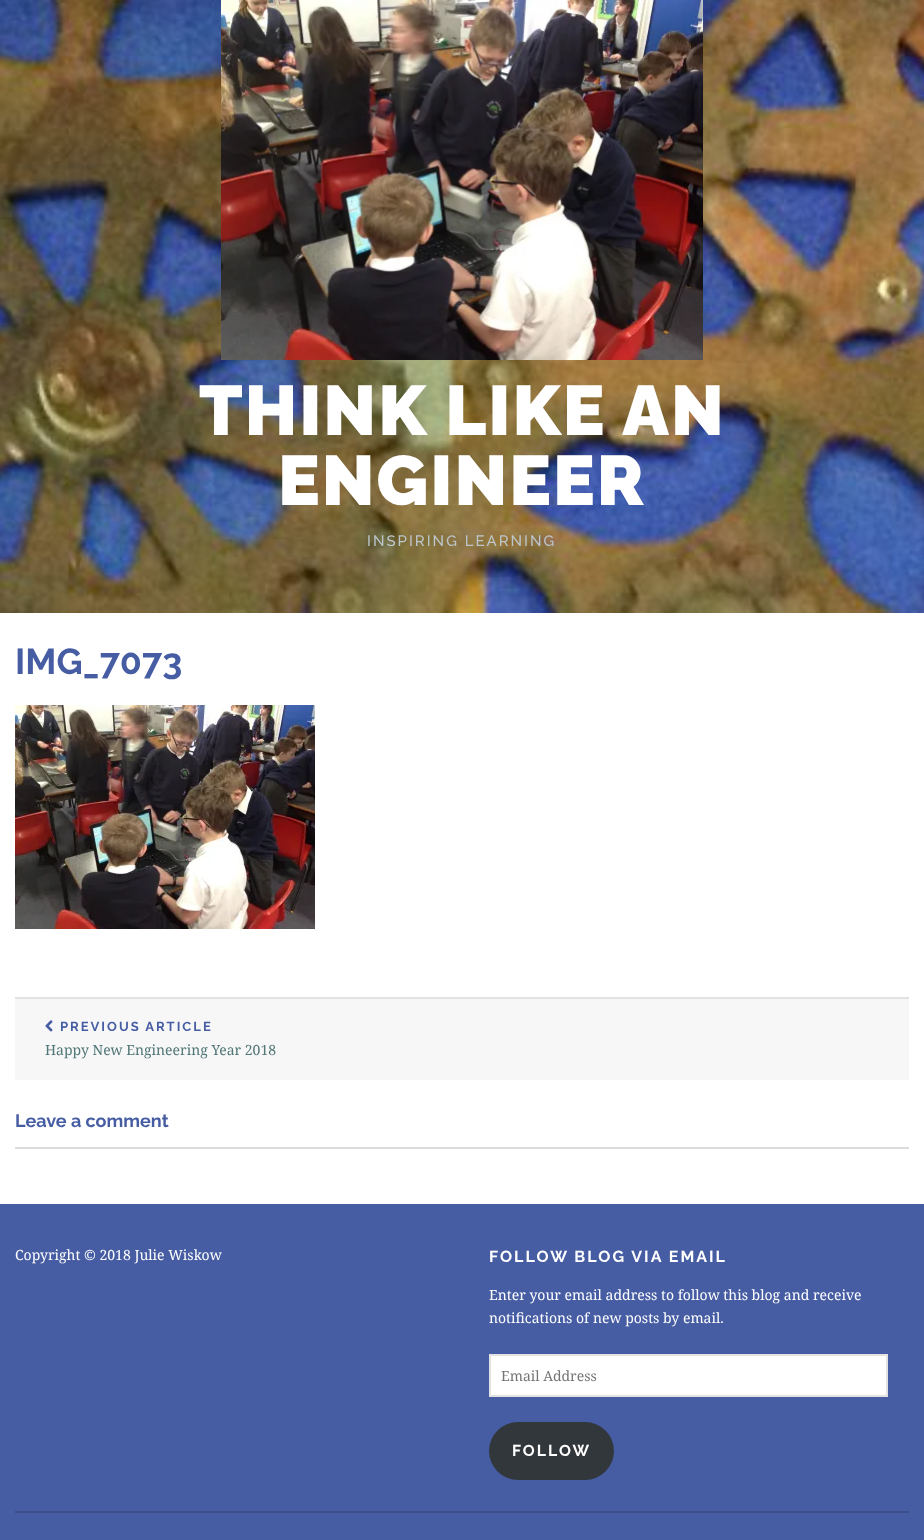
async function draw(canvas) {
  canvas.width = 924
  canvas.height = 1540
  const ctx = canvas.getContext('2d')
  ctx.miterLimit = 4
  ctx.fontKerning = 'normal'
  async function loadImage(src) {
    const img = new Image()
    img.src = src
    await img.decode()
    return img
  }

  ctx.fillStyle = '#fff'
  ctx.fillRect(0, 0, 924, 1540)
  ctx.drawImage(await loadImage('image0.png'), 0, 0, 924, 613)
  ctx.drawImage(await loadImage('image1.png'), 221, 0, 482, 360)
  ctx.letterSpacing = '2px'
  ctx.font = '900 70px Raleway'
  ctx.fillText('THINK LIKE AN', 199, 435)
  ctx.fillText('ENGINEER', 278, 505)
  ctx.font = '500 15px Raleway'
  ctx.fillStyle = '#bcc6cb'
  ctx.fillText('INSPIRING LEARNING', 367, 546)
  ctx.fillStyle = '#e2e2e2'
  ctx.fillRect(15, 997, 894, 2)
  ctx.letterSpacing = '0px'
  ctx.font = 'bold 36px Raleway'
  ctx.fillStyle = '#465da3'
  ctx.fillText('IMG_7073', 15, 674)
  ctx.drawImage(await loadImage('image2.png'), 15, 705, 300, 224)
  ctx.fillStyle = '#f7f7f7'
  ctx.fillRect(15, 999, 894, 81)
  ctx.drawImage(await loadImage('image3.png'), 45, 1020, 8, 12)
  ctx.letterSpacing = '2px'
  ctx.font = 'bold 13px Raleway'
  ctx.fillStyle = '#465da3'
  ctx.fillText('PREVIOUS ARTICLE', 60, 1031)
  ctx.letterSpacing = '0px'
  ctx.font = '14px Noto Serif'
  ctx.fillStyle = '#507676'
  ctx.fillText('Happy New Engineering Year 2018', 45, 1055)
  ctx.font = 'bold 18px Raleway'
  ctx.fillStyle = '#465da3'
  ctx.fillText('Leave a comment', 15, 1127)
  ctx.fillStyle = '#dcdcde'
  ctx.fillRect(15, 1147, 894, 2)
  ctx.fillStyle = '#465da3'
  ctx.fillRect(0, 1204, 924, 336)
  ctx.fillStyle = '#3c4f8b'
  ctx.fillRect(15, 1511, 894, 2)
  ctx.font = '14px Noto Serif'
  ctx.fillStyle = '#fff'
  ctx.fillText('Copyright © 2018 Julie Wiskow', 15, 1260)
  ctx.letterSpacing = '2px'
  ctx.font = 'bold 16px Raleway'
  ctx.fillText('FOLLOW BLOG VIA EMAIL', 489, 1262)
  ctx.letterSpacing = '0px'
  ctx.font = '14px Noto Serif'
  ctx.fillText('Enter your email address to follow this blog and receive', 489, 1300)
  ctx.fillText('notifications of new posts by email.', 489, 1323)
  ctx.beginPath()
  ctx.rect(490, 1355, 397, 41)
  ctx.fill()
  ctx.strokeStyle = '#e2e2e2'
  ctx.lineWidth = 2
  ctx.stroke()
  ctx.fillStyle = '#757575'
  ctx.fillText('Email Address', 501, 1381)
  ctx.fillStyle = '#32373c'
  ctx.beginPath()
  ctx.roundRect(489, 1422, 125, 58, 29)
  ctx.fill()
  ctx.letterSpacing = '2px'
  ctx.font = 'bold 15.75px Raleway'
  ctx.fillStyle = '#fff'
  ctx.fillText('FOLLOW', 512, 1456)
}

draw(document.querySelector('canvas'))
